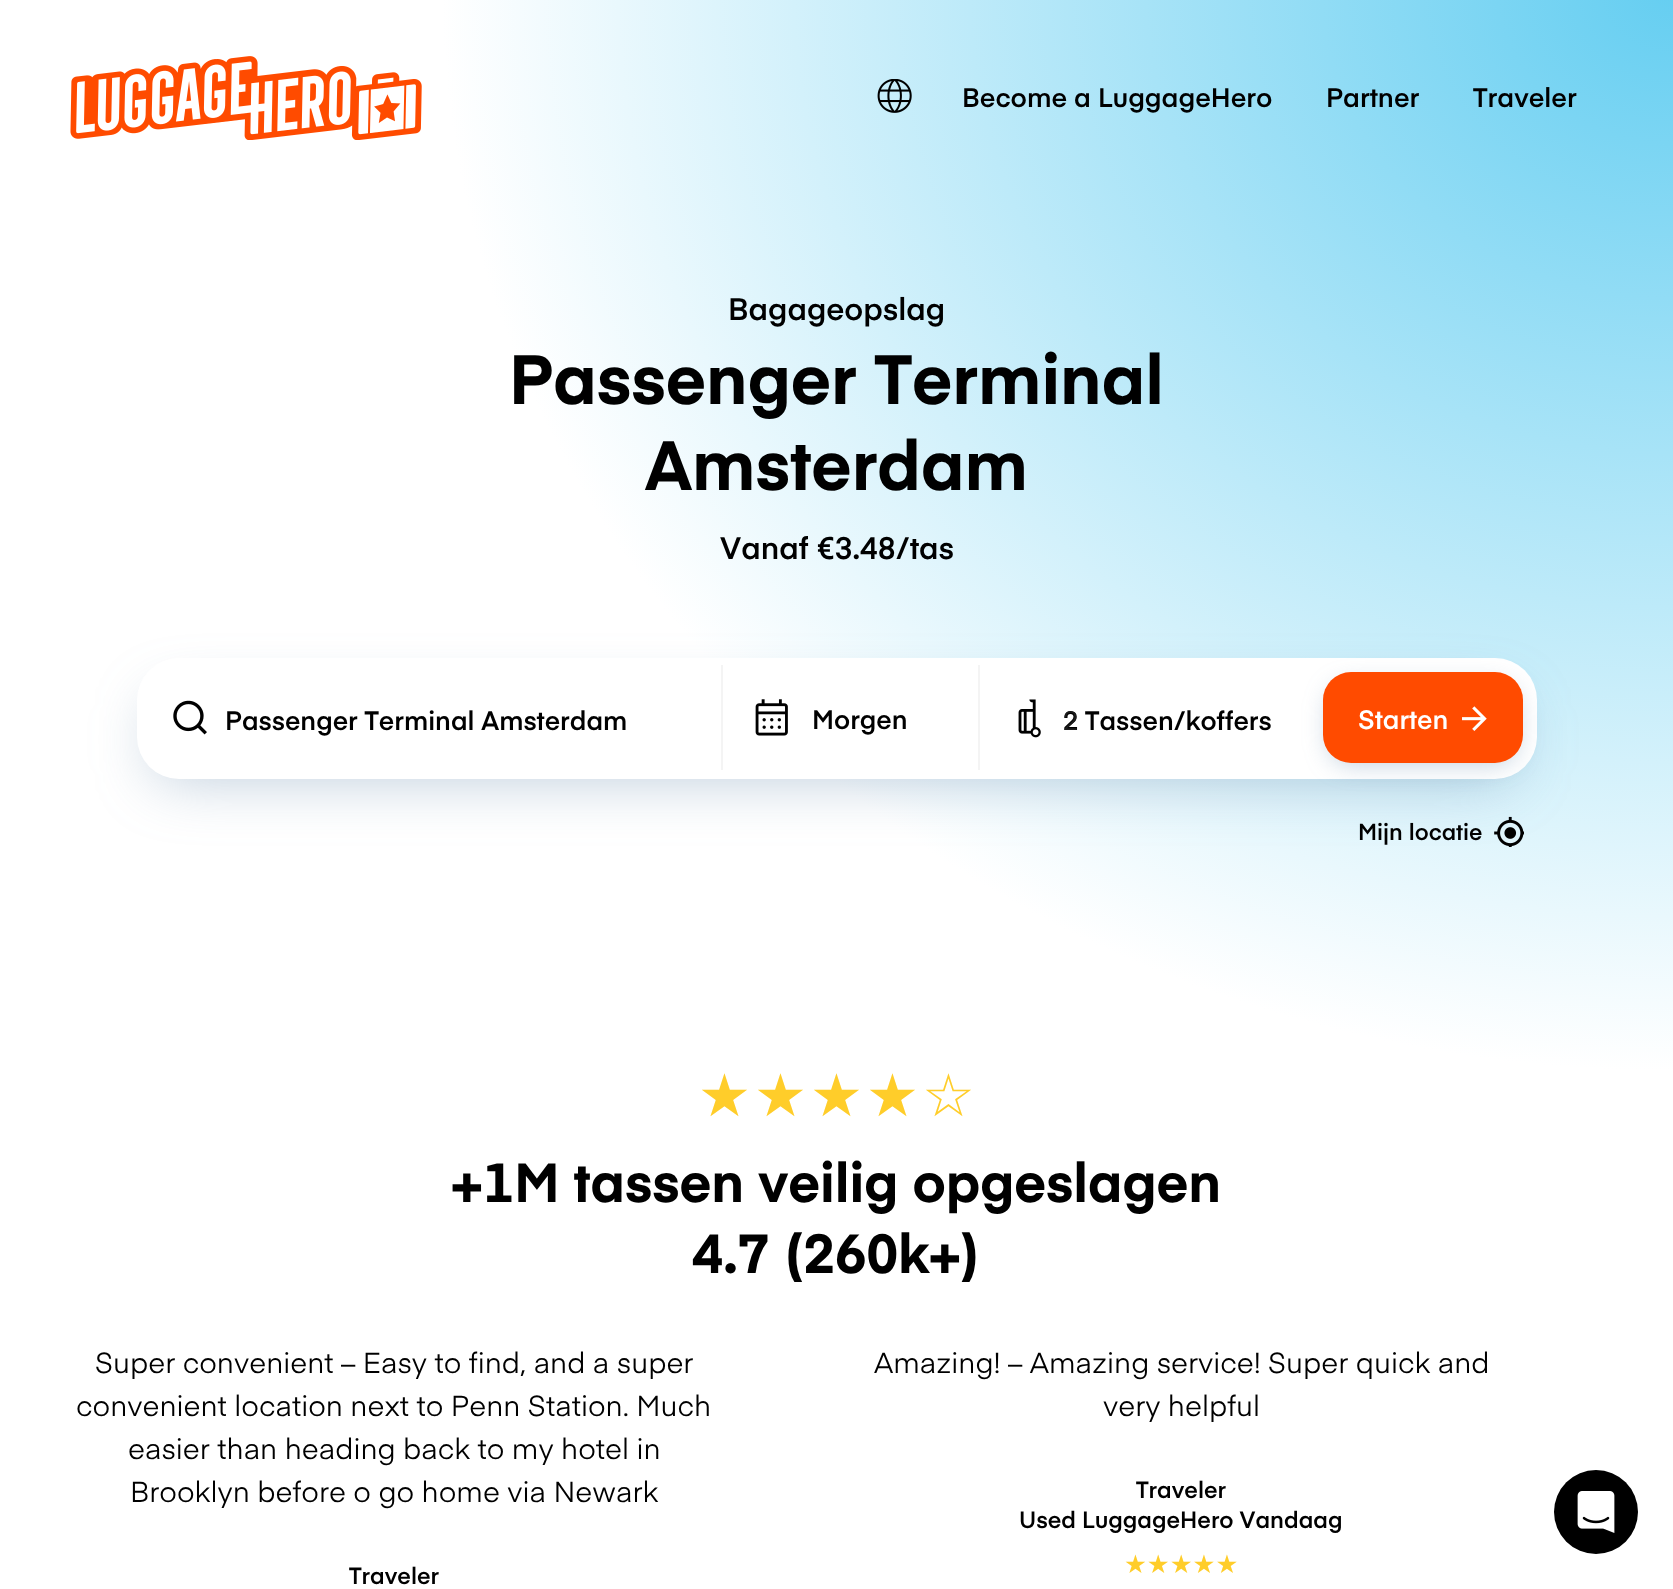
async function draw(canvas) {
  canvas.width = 1673
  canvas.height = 1589
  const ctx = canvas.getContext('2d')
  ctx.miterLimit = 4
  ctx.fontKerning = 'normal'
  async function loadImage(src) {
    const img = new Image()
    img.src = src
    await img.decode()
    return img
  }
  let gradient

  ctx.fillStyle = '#fff'
  ctx.fillRect(0, 0, 1673, 1589)
  ctx.drawImage(await loadImage('image0.png'), 70, 56, 352, 84)
  gradient = ctx.createRadialGradient(1673, -12.51, 0, 1673, -12.51, 1231)
  gradient.addColorStop(0, '#65cef1')
  gradient.addColorStop(1, '#fff')
  ctx.fillStyle = gradient
  ctx.beginPath()
  ctx.ellipse(1673, -10.5, 1231, 1082.5, 0, 0, 2 * Math.PI)
  ctx.save()
  ctx.clip()
  ctx.scale(1, 1082 / 1231)
  ctx.fillRect(0, 0, 1673, 1808)
  ctx.restore()
  ctx.drawImage(await loadImage('image1.png'), 877, 79, 35, 34)
  ctx.font = '26.6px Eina'
  ctx.fillStyle = '#000'
  ctx.fillText('Become a LuggageHero', 962, 107)
  ctx.fillText('Partner', 1326, 107)
  ctx.fillText('Traveler', 1473, 107)
  ctx.font = '30.75px Eina'
  ctx.fillText('Bagageopslag', 728, 320)
  ctx.font = '68.75px "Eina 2"'
  ctx.fillText('Passenger Terminal', 509, 404)
  ctx.fillText('Amsterdam', 645, 490)
  ctx.font = '30.75px Eina'
  ctx.fillText('Vanaf €3.48/tas', 720, 559)
  ctx.fillStyle = '#5780a466'
  ctx.filter = 'blur(30px)'
  ctx.beginPath()
  ctx.roundRect(154, 700, 1358, 79, 21)
  ctx.fill()
  ctx.filter = 'none'
  ctx.fillStyle = '#fff'
  ctx.beginPath()
  ctx.roundRect(137, 658, 1400, 121, 42)
  ctx.fill()
  ctx.drawImage(await loadImage('image2.png'), 173, 700, 34, 35)
  ctx.font = '26.25px Eina'
  ctx.fillStyle = '#000'
  ctx.fillText('Passenger Terminal Amsterdam', 225, 730)
  ctx.fillStyle = '#f4f4f4'
  ctx.fillRect(978, 665, 2, 105)
  ctx.fillRect(721, 665, 2, 105)
  ctx.drawImage(await loadImage('image3.png'), 755, 699, 33, 37)
  ctx.fillStyle = '#000'
  ctx.fillText('Morgen', 812, 729)
  ctx.drawImage(await loadImage('image4.png'), 1018, 699, 23, 39)
  ctx.fillText('2 Tassen/koffers', 1063, 730)
  ctx.font = '26.25px "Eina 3"'
  ctx.fillStyle = '#1c1c1c'
  ctx.fillText('2', 1063, 730)
  ctx.fillStyle = '#5780a466'
  ctx.filter = 'blur(13px)'
  ctx.beginPath()
  ctx.roundRect(1330, 686, 186, 77, 21)
  ctx.fill()
  ctx.filter = 'none'
  ctx.fillStyle = '#ff4b00'
  ctx.beginPath()
  ctx.roundRect(1323, 672, 200, 91, 28)
  ctx.fill()
  ctx.font = '26.25px Eina'
  ctx.fillStyle = '#fff'
  ctx.fillText('Starten', 1358, 729)
  ctx.drawImage(await loadImage('image5.png'), 1462, 706, 25, 25)
  ctx.font = '22.75px Eina'
  ctx.fillStyle = '#000'
  ctx.fillText('Mijn locatie', 1358, 840)
  ctx.drawImage(await loadImage('image6.png'), 1494, 816, 30, 31)
  ctx.font = '59px DejaVu Sans'
  ctx.fillStyle = '#ffcd2a'
  ctx.fillText('★', 698, 1116)
  ctx.fillText('★', 754, 1116)
  ctx.fillText('★', 810, 1116)
  ctx.fillText('★', 866, 1116)
  ctx.fillText('☆', 922, 1116)
  ctx.font = '54.3px "Eina 2"'
  ctx.fillStyle = '#000'
  ctx.fillText('+1M tassen veilig opgeslagen', 451, 1202)
  ctx.fillText('4.7 (260k+)', 692, 1273)
  ctx.font = '28.6px "Eina 3"'
  ctx.fillText('Super convenient – Easy to find, and a super', 95, 1373)
  ctx.fillText('convenient location next to Penn Station. Much', 76, 1416)
  ctx.fillText('easier than heading back to my hotel in', 128, 1459)
  ctx.fillText('Brooklyn before o go home via Newark', 130, 1502)
  ctx.font = '23.1px Eina'
  ctx.fillText('Traveler', 349, 1584)
  ctx.font = '28.6px "Eina 3"'
  ctx.fillText('Amazing! – Amazing service!', 874, 1373)
  ctx.fillText('Super quick and', 1268, 1373)
  ctx.fillText('very helpful', 1103, 1416)
  ctx.font = '23.1px Eina'
  ctx.fillText('Traveler', 1136, 1498)
  ctx.fillText('Used LuggageHero Vandaag', 1019, 1528)
  ctx.font = '25.5px DejaVu Sans'
  ctx.fillStyle = '#ffcd2a'
  ctx.fillText('★★★★★', 1124, 1573)
  ctx.fillStyle = '#000'
  ctx.beginPath()
  ctx.arc(1596, 1512, 42, 0, 2 * Math.PI)
  ctx.fill()
  ctx.drawImage(await loadImage('image7.png'), 1577, 1491, 38, 42)
}

draw(document.querySelector('canvas'))
